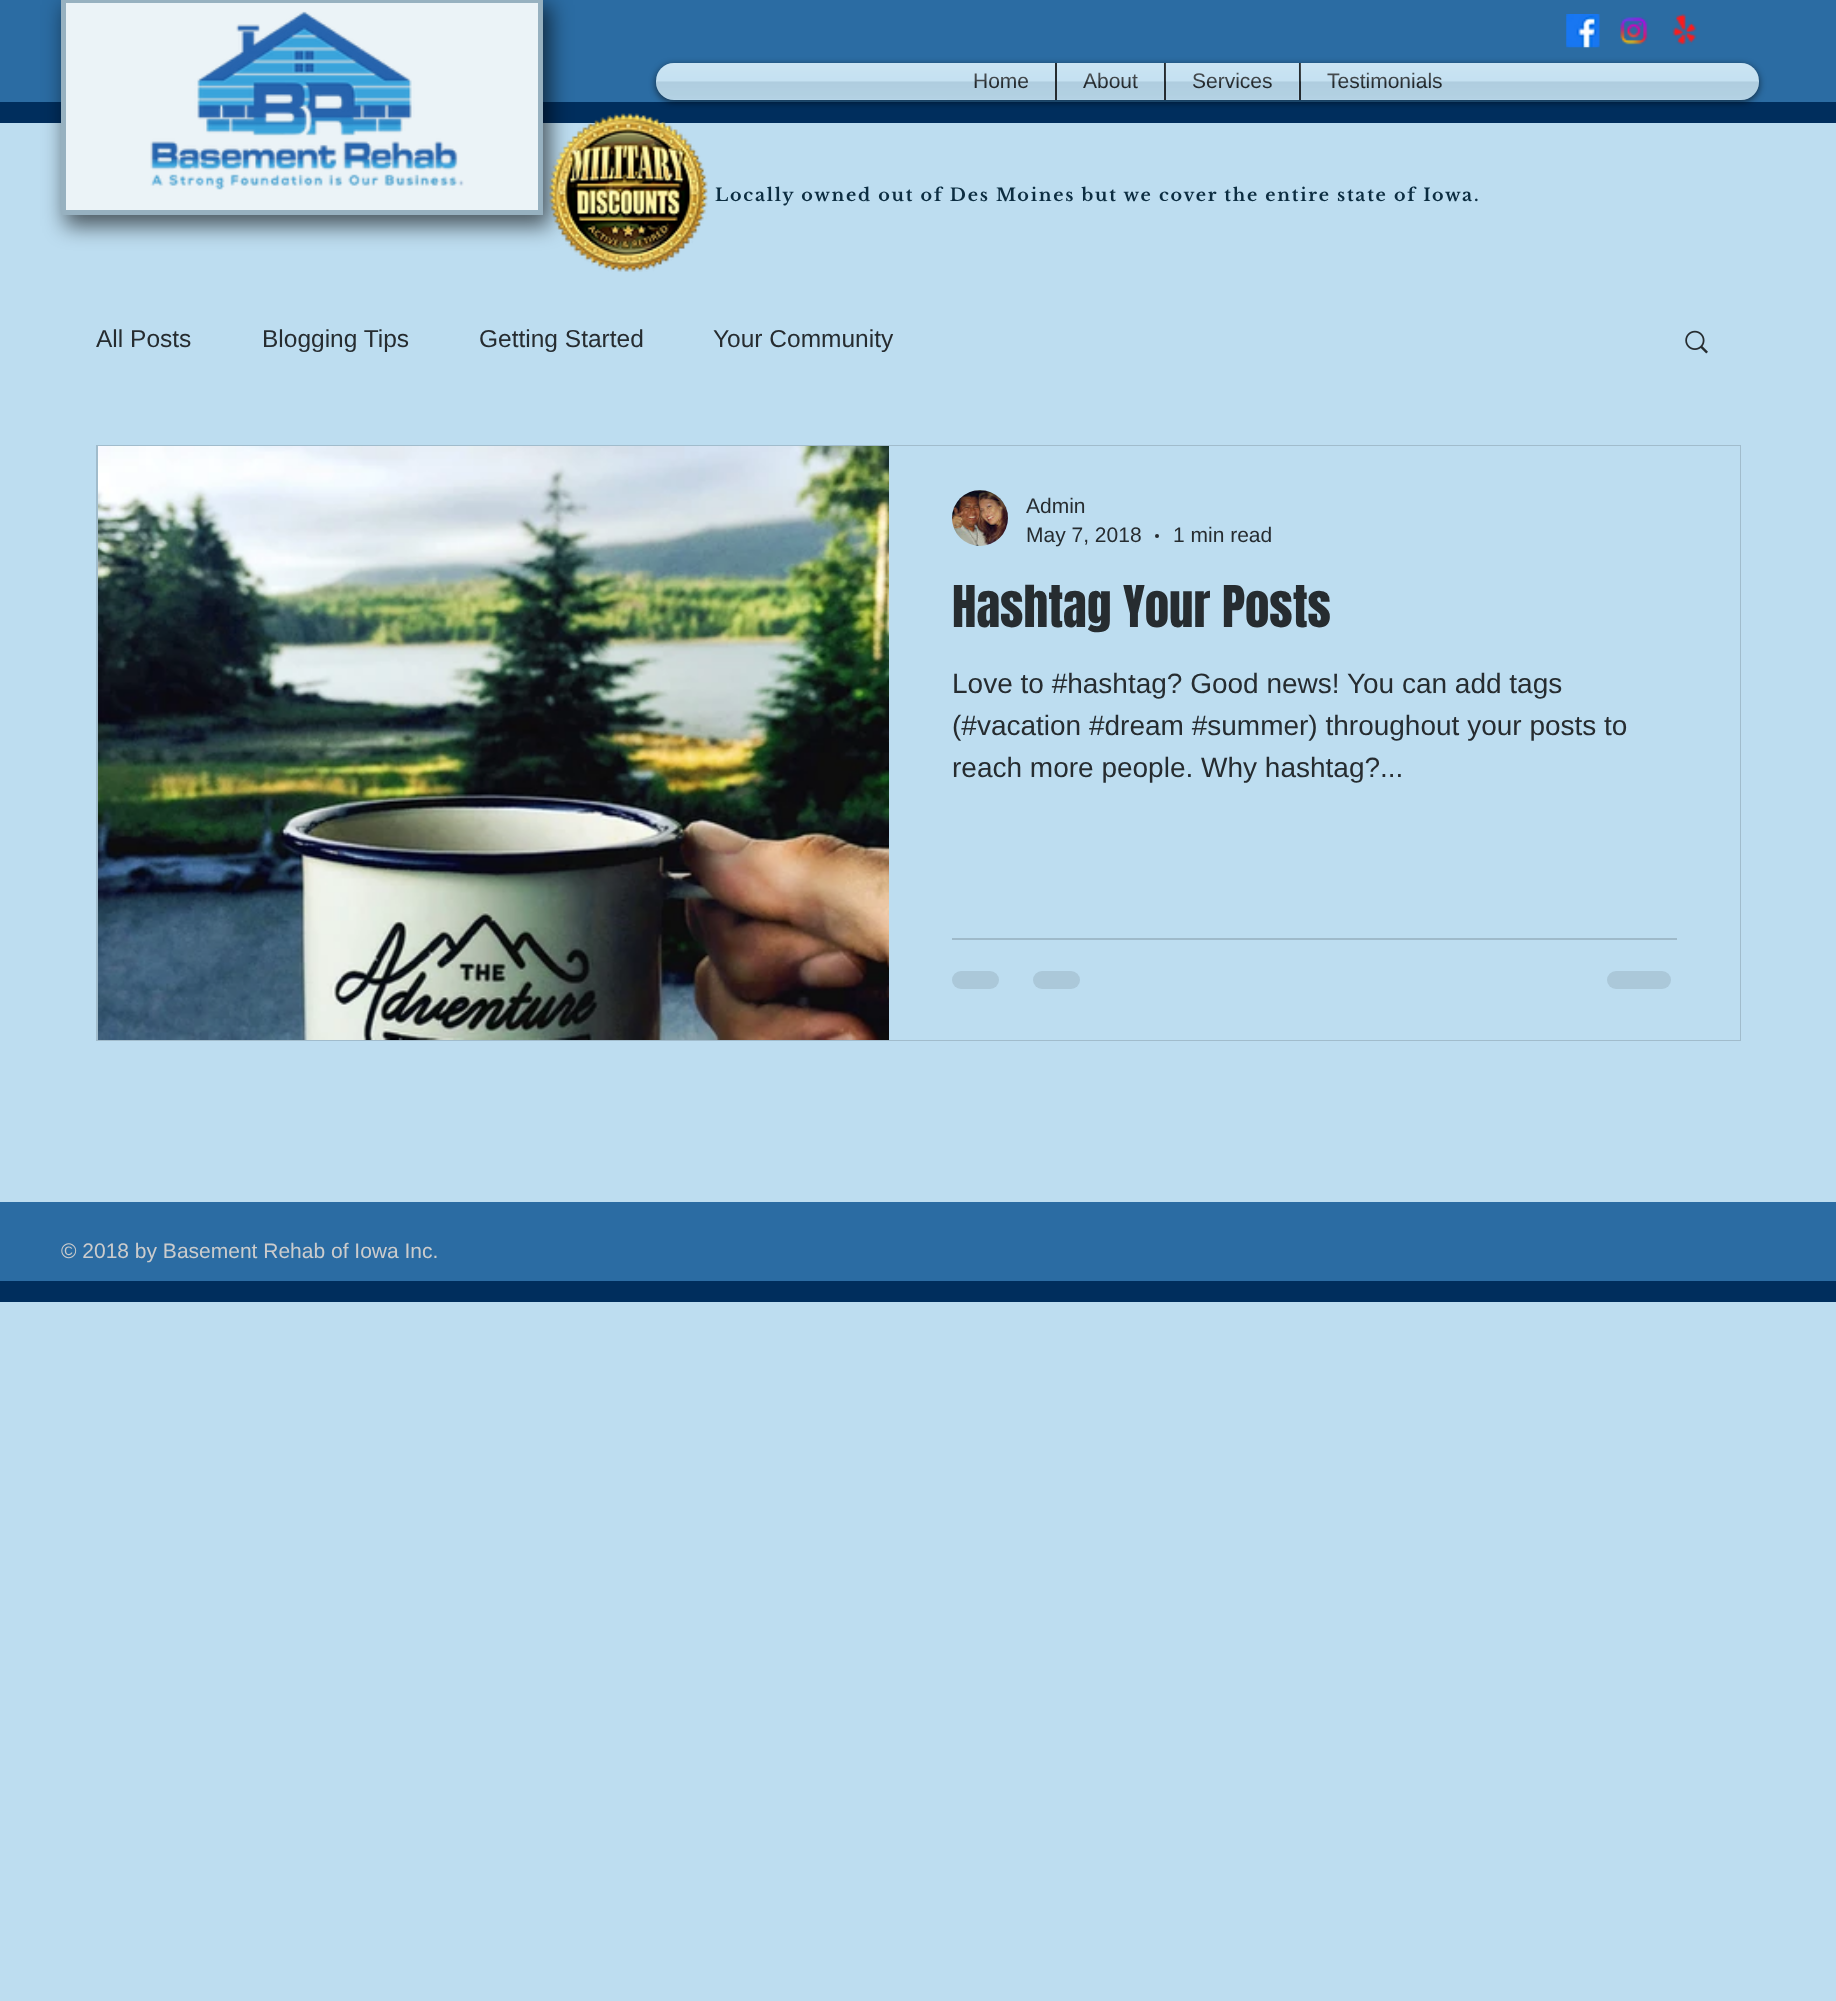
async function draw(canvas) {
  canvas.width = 1836
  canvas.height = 2001
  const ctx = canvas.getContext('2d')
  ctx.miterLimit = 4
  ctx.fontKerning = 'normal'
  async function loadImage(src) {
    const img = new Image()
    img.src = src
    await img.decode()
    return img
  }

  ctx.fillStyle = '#bdddf0'
  ctx.fillRect(0, 0, 1836, 2001)
  ctx.fillStyle = '#2b6ca3'
  ctx.fillRect(0, 0, 1836, 102)
  ctx.fillStyle = '#002e5d'
  ctx.fillRect(0, 102, 1836, 21)
  ctx.fillStyle = '#00000099'
  ctx.filter = 'blur(10.5px)'
  ctx.beginPath()
  ctx.rect(65, 5, 485, 221)
  ctx.fill()
  ctx.filter = 'none'
  ctx.fillStyle = '#ebf3f7'
  ctx.beginPath()
  ctx.rect(63.5, 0.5, 477, 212)
  ctx.fill()
  ctx.strokeStyle = '#97b1c0'
  ctx.lineWidth = 5
  ctx.stroke()
  ctx.drawImage(await loadImage('image0.png'), 150, 11, 314, 179)
  ctx.fillStyle = '#00000099'
  ctx.filter = 'blur(3.5px)'
  ctx.beginPath()
  ctx.roundRect(656, 65, 1103, 37, 18)
  ctx.fill()
  ctx.filter = 'none'
  ctx.drawImage(await loadImage('image1.png'), 549, 113, 159, 159)
  ctx.drawImage(await loadImage('image2.png'), 1566, 14, 34, 34)
  ctx.drawImage(await loadImage('image3.png'), 1620, 17, 28, 28)
  ctx.drawImage(await loadImage('image4.png'), 1672, 14, 25, 31)
  ctx.fillStyle = '#bdddf0'
  ctx.beginPath()
  ctx.roundRect(656, 63, 1103, 37, 18)
  ctx.fill()
  ctx.drawImage(await loadImage('image5.png'), 656, 63, 1103, 37)
  ctx.fillRect(947, 63, 108, 37)
  ctx.font = '21px Liberation Sans'
  ctx.fillStyle = '#262c30'
  ctx.fillText('Home', 973, 88)
  ctx.drawImage(await loadImage('image6.png'), 947, 63, 108, 37)
  ctx.fillStyle = '#bdddf0'
  ctx.fillRect(1057, 63, 107, 37)
  ctx.fillStyle = '#262c30'
  ctx.fillRect(1055, 63, 2, 37)
  ctx.fillText('About', 1083, 88)
  ctx.drawImage(await loadImage('image7.png'), 1057, 63, 107, 37)
  ctx.fillStyle = '#bdddf0'
  ctx.fillRect(1166, 63, 133, 37)
  ctx.fillStyle = '#262c30'
  ctx.fillRect(1164, 63, 2, 37)
  ctx.fillText('Services', 1192, 88)
  ctx.drawImage(await loadImage('image8.png'), 1165, 63, 134, 37)
  ctx.fillStyle = '#bdddf0'
  ctx.fillRect(1301, 63, 167, 37)
  ctx.fillStyle = '#262c30'
  ctx.fillRect(1299, 63, 2, 37)
  ctx.fillText('Testimonials', 1327, 88)
  ctx.drawImage(await loadImage('image9.png'), 1300, 63, 168, 37)
  ctx.letterSpacing = '1.75px'
  ctx.font = 'bold 17.5px Libre Baskerville'
  ctx.fillStyle = '#0c2d41'
  ctx.fillText('Locally owned out of Des Moines but we cover the entire state of Iowa.', 715, 201)
  ctx.letterSpacing = '0px'
  ctx.font = '24.5px Liberation Sans'
  ctx.fillStyle = '#262c30'
  ctx.fillText('All Posts', 96, 347)
  ctx.fillText('Blogging Tips', 262, 347)
  ctx.fillText('Getting Started', 479, 347)
  ctx.fillText('Your Community', 713, 347)
  ctx.drawImage(await loadImage('image10.png'), 1685, 330, 23, 24)
  ctx.strokeStyle = '#a1bccc'
  ctx.lineWidth = 2
  ctx.strokeRect(97, 446, 1643, 594)
  ctx.drawImage(await loadImage('image11.png'), 98, 446, 791, 594)
  ctx.fillStyle = '#bdddf0'
  ctx.fillRect(889, 446, 851, 594)
  ctx.drawImage(await loadImage('image12.png'), 952, 490, 56, 56)
  ctx.font = '21px Liberation Sans'
  ctx.fillStyle = '#262c30'
  ctx.fillText('Admin', 1026, 513)
  ctx.fillText('May 7, 2018', 1026, 542)
  ctx.beginPath()
  ctx.arc(1157, 536, 2, 0, 2 * Math.PI)
  ctx.fill()
  ctx.fillText('1 min read', 1173, 542)
  ctx.font = '49px Anton'
  ctx.fillText('Hashtag Your Posts', 952, 627)
  ctx.font = '28px Liberation Sans'
  ctx.fillText('Love to #hashtag? Good news! You can add tags', 952, 693)
  ctx.fillText('(#vacation #dream #summer) throughout your posts to', 952, 735)
  ctx.fillText('reach more people. Why hashtag?...', 952, 777)
  ctx.fillStyle = '#9fbaca'
  ctx.fillRect(952, 938, 725, 2)
  ctx.fillStyle = '#abc8d9'
  ctx.beginPath()
  ctx.roundRect(952, 971, 47, 18, 9)
  ctx.fill()
  ctx.beginPath()
  ctx.roundRect(1033, 971, 47, 18, 9)
  ctx.fill()
  ctx.beginPath()
  ctx.roundRect(1607, 971, 64, 18, 9)
  ctx.fill()
  ctx.fillStyle = '#2b6ca3'
  ctx.fillRect(0, 1202, 1836, 79)
  ctx.fillStyle = '#002e5d'
  ctx.fillRect(0, 1281, 1836, 21)
  ctx.font = '21px Liberation Sans'
  ctx.fillStyle = '#ccc'
  ctx.fillText('© 2018 by Basement Rehab of Iowa Inc.', 61, 1258)
}

draw(document.querySelector('canvas'))
